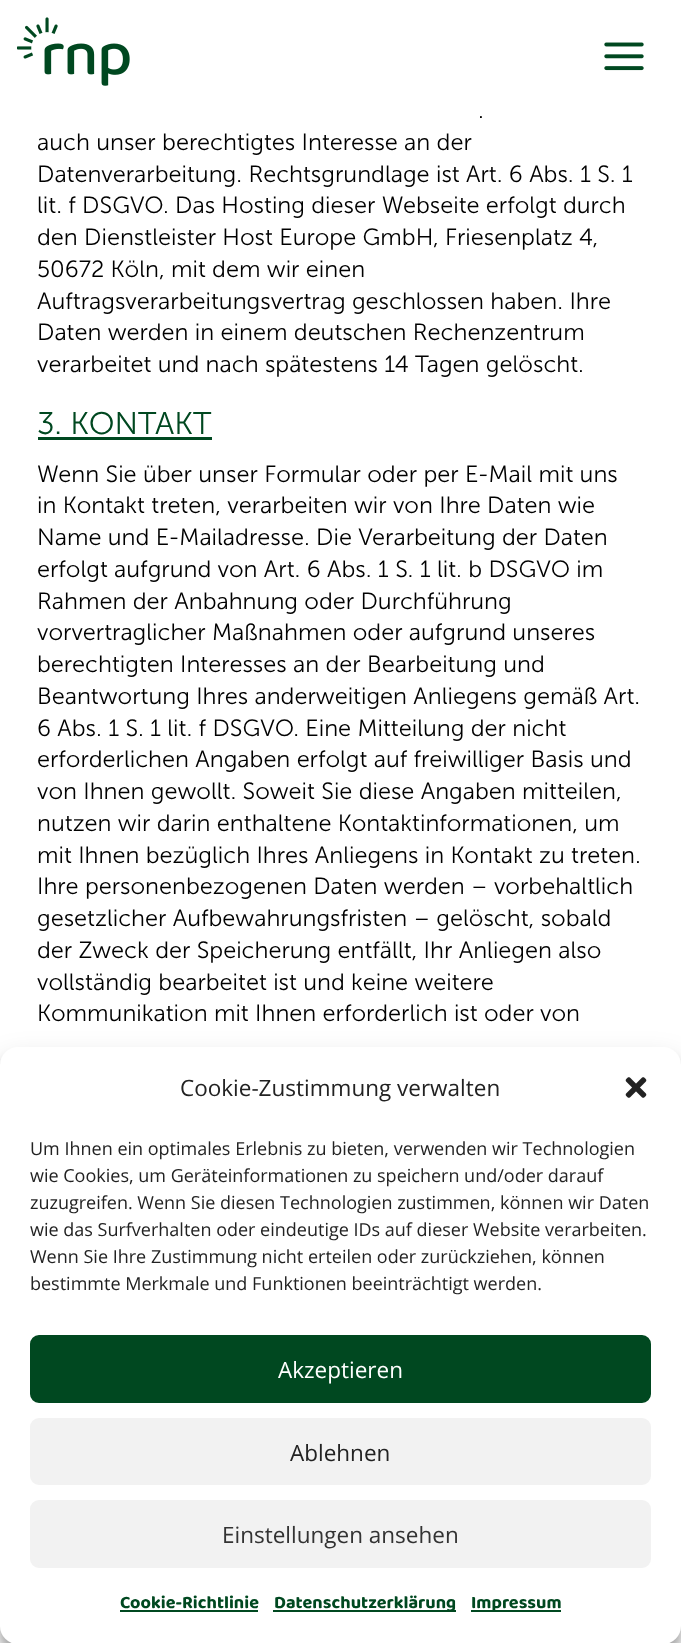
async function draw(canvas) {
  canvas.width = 681
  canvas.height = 1643
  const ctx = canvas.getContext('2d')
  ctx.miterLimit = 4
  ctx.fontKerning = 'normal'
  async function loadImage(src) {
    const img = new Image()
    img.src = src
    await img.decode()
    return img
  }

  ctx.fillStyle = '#fff'
  ctx.fillRect(0, 0, 681, 1643)
  ctx.drawImage(await loadImage('image0.png'), 17, 17, 113, 69)
  ctx.drawImage(await loadImage('image1.png'), 604, 42, 40, 29)
  ctx.font = '300 23.5px "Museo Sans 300"'
  ctx.fillStyle = '#000'
  ctx.fillText('.', 478, 118)
  ctx.fillText('auch unser berechtigtes Interesse an der', 37, 150)
  ctx.fillText('Datenverarbeitung. Rechtsgrundlage ist Art. 6 Abs. 1 S. 1', 37, 182)
  ctx.fillText('lit. f DSGVO. Das Hosting dieser Webseite erfolgt durch', 37, 213)
  ctx.fillText('den Dienstleister Host Europe GmbH, Friesenplatz 4,', 37, 245)
  ctx.fillText('50672 Köln, mit dem wir einen', 37, 277)
  ctx.fillText('Auftragsverarbeitungsvertrag geschlossen haben. Ihre', 37, 309)
  ctx.fillText('Daten werden in einem deutschen Rechenzentrum', 37, 340)
  ctx.fillText('verarbeitet und nach spätestens 14 Tagen gelöscht.', 37, 372)
  ctx.font = '300 31.25px "Museo Sans 300"'
  ctx.fillStyle = '#004820'
  ctx.fillText('3. KONTAKT', 37, 434)
  ctx.fillRect(38, 437, 174, 3)
  ctx.font = '300 23.5px "Museo Sans 300"'
  ctx.fillStyle = '#000'
  ctx.fillText('Wenn Sie über unser Formular oder per E-Mail mit uns', 37, 482)
  ctx.fillText('in Kontakt treten, verarbeiten wir von Ihre Daten wie', 37, 513)
  ctx.fillText('Name und E-Mailadresse. Die Verarbeitung der Daten', 37, 545)
  ctx.fillText('erfolgt aufgrund von Art. 6 Abs. 1 S. 1 lit. b DSGVO im', 37, 577)
  ctx.fillText('Rahmen der Anbahnung oder Durchführung', 37, 609)
  ctx.fillText('vorvertraglicher Maßnahmen oder aufgrund unseres', 37, 640)
  ctx.fillText('berechtigten Interesses an der Bearbeitung und', 37, 672)
  ctx.fillText('Beantwortung Ihres anderweitigen Anliegens gemäß Art.', 37, 704)
  ctx.fillText('6 Abs. 1 S. 1 lit. f DSGVO. Eine Mitteilung der nicht', 37, 736)
  ctx.fillText('erforderlichen Angaben erfolgt auf freiwilliger Basis und', 37, 767)
  ctx.fillText('von Ihnen gewollt. Soweit Sie diese Angaben mitteilen,', 37, 799)
  ctx.fillText('nutzen wir darin enthaltene Kontaktinformationen, um', 37, 831)
  ctx.fillText('mit Ihnen bezüglich Ihres Anliegens in Kontakt zu treten.', 37, 863)
  ctx.fillText('Ihre personenbezogenen Daten werden – vorbehaltlich', 37, 894)
  ctx.fillText('gesetzlicher Aufbewahrungsfristen – gelöscht, sobald', 37, 926)
  ctx.fillText('der Zweck der Speicherung entfällt, Ihr Anliegen also', 37, 958)
  ctx.fillText('vollständig bearbeitet ist und keine weitere', 37, 990)
  ctx.fillText('Kommunikation mit Ihnen erforderlich ist oder von', 37, 1021)
  ctx.fillStyle = '#0000003b'
  ctx.filter = 'blur(4.5px)'
  ctx.beginPath()
  ctx.roundRect(0, 1056, 681, 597, 18)
  ctx.fill()
  ctx.filter = 'none'
  ctx.fillStyle = '#00000030'
  ctx.filter = 'blur(15px)'
  ctx.beginPath()
  ctx.roundRect(0, 1062, 681, 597, 18)
  ctx.fill()
  ctx.filter = 'none'
  ctx.fillStyle = '#fff'
  ctx.beginPath()
  ctx.roundRect(0, 1047, 681, 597, 18)
  ctx.fill()
  ctx.font = '22.5px Open Sans'
  ctx.fillStyle = '#222'
  ctx.fillText('Cookie-Zustimmung verwalten', 180, 1096)
  ctx.drawImage(await loadImage('image2.png'), 625, 1077, 22, 21)
  ctx.font = '18px Open Sans'
  ctx.fillText('Um Ihnen ein optimales Erlebnis zu bieten, verwenden wir Technologien', 30, 1155)
  ctx.fillText('wie Cookies, um Geräteinformationen zu speichern und/oder darauf', 30, 1182)
  ctx.fillText('zuzugreifen. Wenn Sie diesen Technologien zustimmen, können wir Daten', 30, 1209)
  ctx.fillText('wie das Surfverhalten oder eindeutige IDs auf dieser Website verarbeiten.', 30, 1236)
  ctx.fillText('Wenn Sie Ihre Zustimmung nicht erteilen oder zurückziehen, können', 30, 1263)
  ctx.fillText('bestimmte Merkmale und Funktionen beeinträchtigt werden.', 30, 1290)
  ctx.fillStyle = '#004820'
  ctx.beginPath()
  ctx.roundRect(31, 1336, 619, 66, 8)
  ctx.fill()
  ctx.strokeStyle = '#004820'
  ctx.lineWidth = 2
  ctx.stroke()
  ctx.font = '22.5px Open Sans'
  ctx.fillStyle = '#fff'
  ctx.fillText('Akzeptieren', 278, 1378)
  ctx.fillStyle = '#f2f2f2'
  ctx.beginPath()
  ctx.roundRect(31, 1419, 619, 65, 8)
  ctx.fill()
  ctx.strokeStyle = '#f2f2f2'
  ctx.stroke()
  ctx.fillStyle = '#222'
  ctx.fillText('Ablehnen', 290, 1461)
  ctx.fillStyle = '#f2f2f2'
  ctx.beginPath()
  ctx.roundRect(31, 1501, 619, 66, 8)
  ctx.fill()
  ctx.stroke()
  ctx.fillStyle = '#333'
  ctx.fillText('Einstellungen ansehen', 222, 1543)
  ctx.font = 'bold 18px "Baloo 2"'
  ctx.fillStyle = '#004820'
  ctx.fillText('Cookie-Richtlinie', 120, 1608)
  ctx.fillRect(120, 1610, 138, 2)
  ctx.fillRect(273, 1610, 183, 2)
  ctx.fillText('Datenschutzerklärung', 274, 1608)
  ctx.fillRect(471, 1610, 90, 2)
  ctx.fillText('Impressum', 471, 1608)
}

draw(document.querySelector('canvas'))
